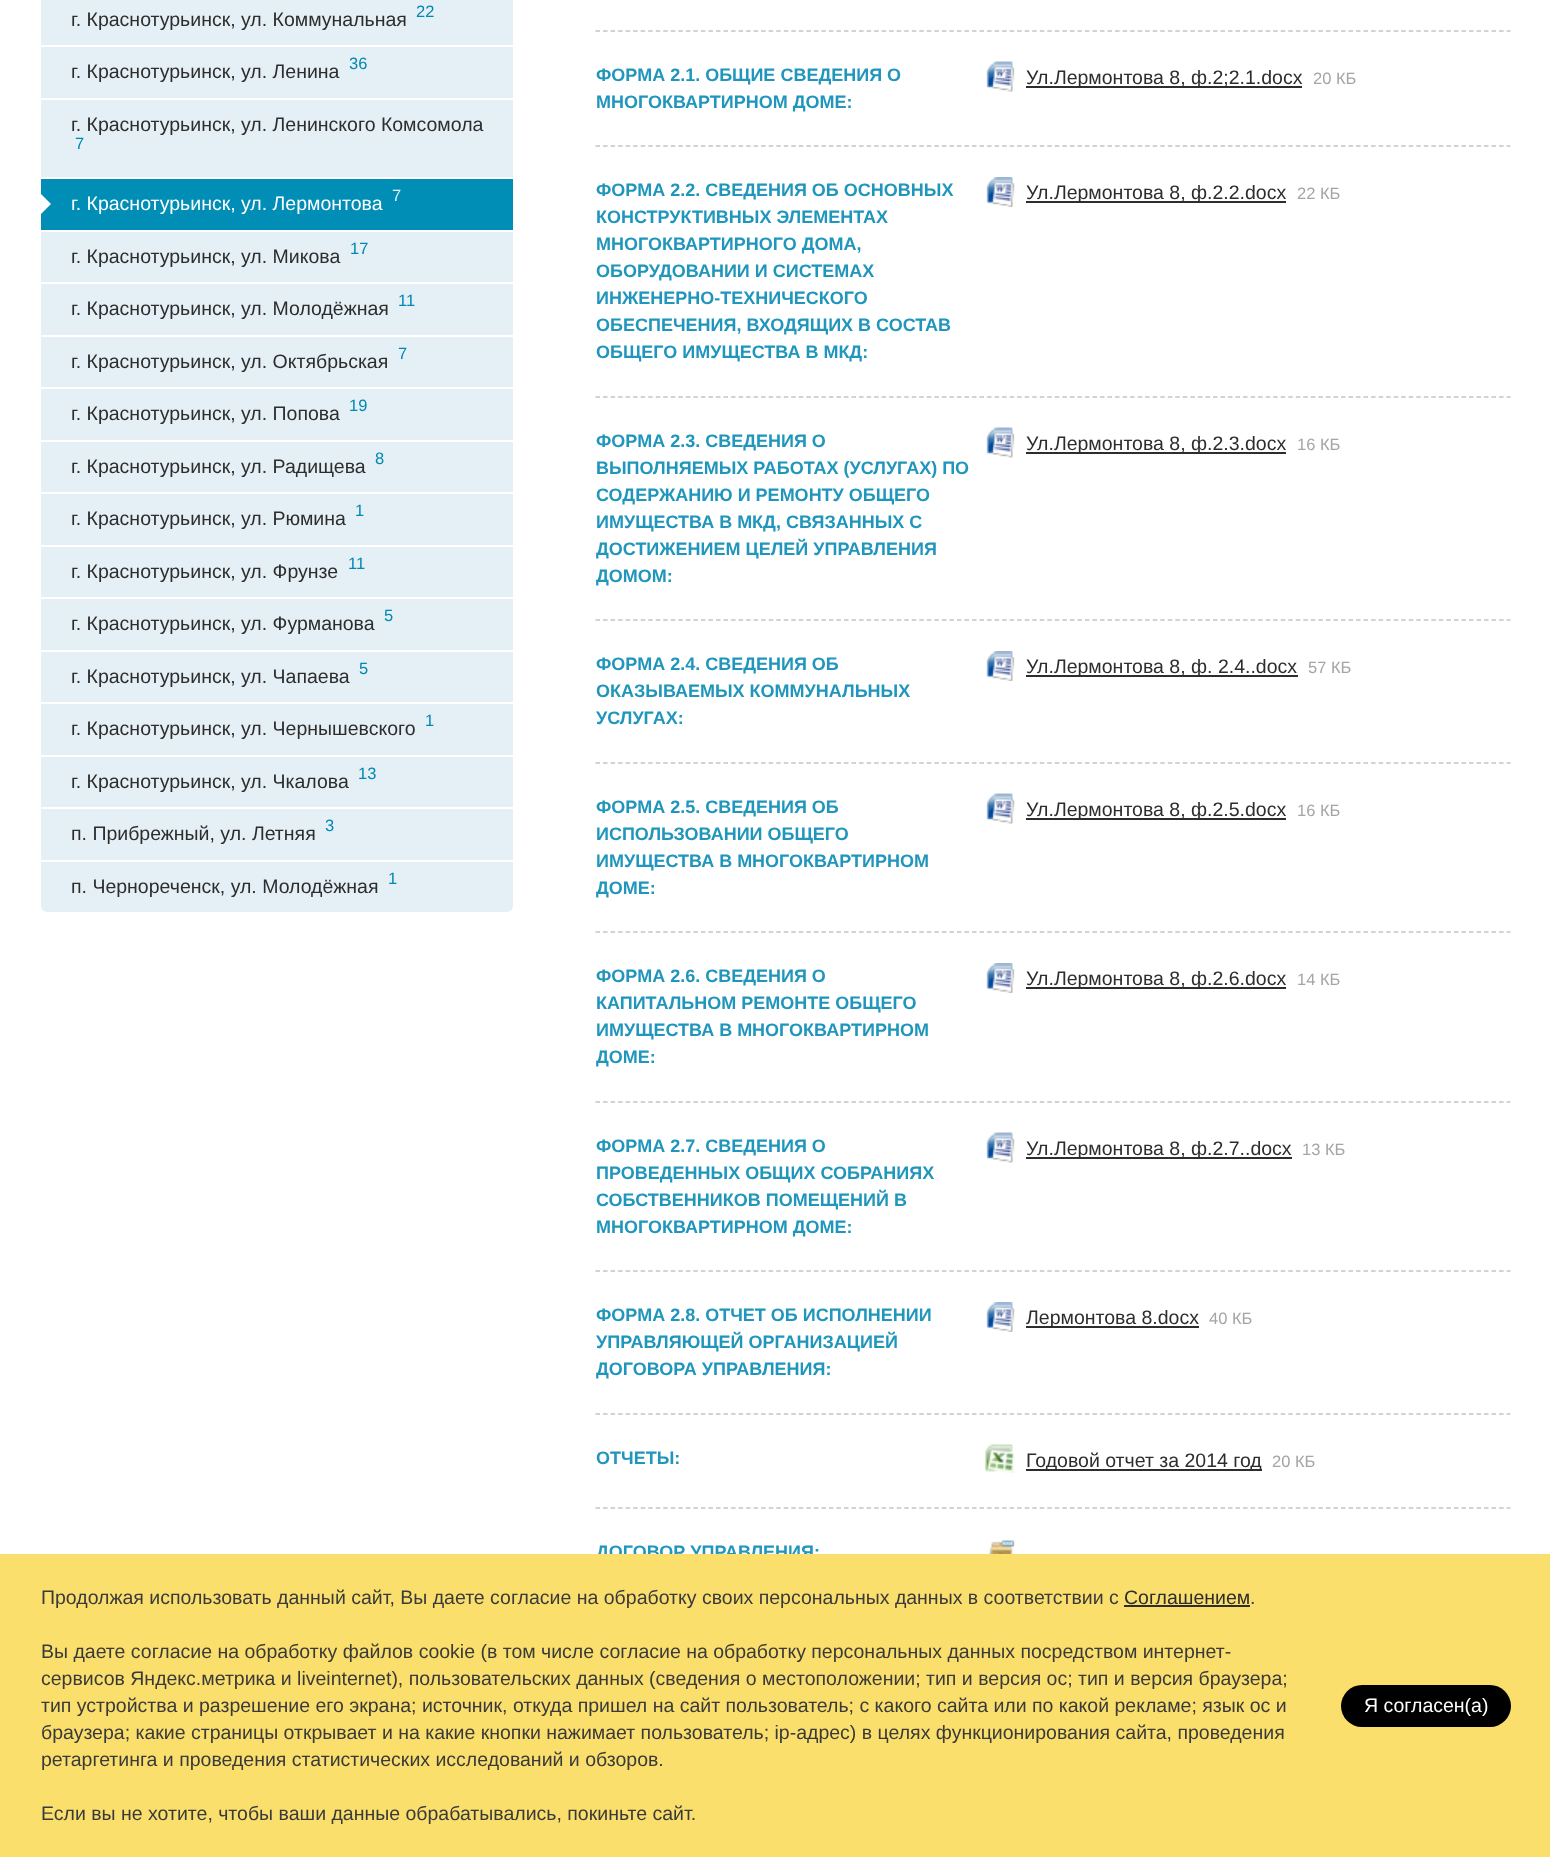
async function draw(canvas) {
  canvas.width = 1550
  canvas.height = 1857
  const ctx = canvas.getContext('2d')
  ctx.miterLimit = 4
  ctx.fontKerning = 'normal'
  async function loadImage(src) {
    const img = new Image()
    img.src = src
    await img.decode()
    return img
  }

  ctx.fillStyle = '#fff'
  ctx.fillRect(0, 0, 1550, 1857)
  ctx.fillStyle = '#e5f0f6'
  ctx.beginPath()
  ctx.roundRect(41, -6, 472, 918, 6)
  ctx.fill()
  ctx.fillStyle = '#fff'
  ctx.fillRect(41, 45, 472, 2)
  ctx.font = '19.5px Liberation Sans'
  ctx.fillStyle = '#2d2d2d'
  ctx.fillText('г. Краснотурьинск, ул. Коммунальная', 71, 26)
  ctx.font = '16.5px Liberation Sans'
  ctx.fillStyle = '#0087b2'
  ctx.fillText('22', 416, 17)
  ctx.fillStyle = '#fff'
  ctx.fillRect(41, 98, 472, 2)
  ctx.font = '19.5px Liberation Sans'
  ctx.fillStyle = '#2d2d2d'
  ctx.fillText('г. Краснотурьинск, ул. Ленина', 71, 78)
  ctx.font = '16.5px Liberation Sans'
  ctx.fillStyle = '#0087b2'
  ctx.fillText('36', 349, 69)
  ctx.fillStyle = '#fff'
  ctx.fillRect(41, 177, 472, 2)
  ctx.font = '19.5px Liberation Sans'
  ctx.fillStyle = '#2d2d2d'
  ctx.fillText('г. Краснотурьинск, ул. Ленинского Комсомола', 71, 131)
  ctx.font = '16.5px Liberation Sans'
  ctx.fillStyle = '#0087b2'
  ctx.fillText('7', 75, 149)
  ctx.fillStyle = '#fff'
  ctx.fillRect(41, 230, 472, 2)
  ctx.fillStyle = '#008eb6'
  ctx.fillRect(41, 179, 472, 51)
  ctx.fillStyle = '#fff'
  ctx.beginPath()
  ctx.moveTo(40.5, 214.5)
  ctx.lineTo(40.5, 193.5)
  ctx.lineTo(51, 204)
  ctx.closePath()
  ctx.fill()
  ctx.font = '19.5px Liberation Sans'
  ctx.fillText('г. Краснотурьинск, ул. Лермонтова', 71, 210)
  ctx.font = '16.5px Liberation Sans'
  ctx.fillStyle = '#e4eff5'
  ctx.fillText('7', 392, 201)
  ctx.fillStyle = '#fff'
  ctx.fillRect(41, 282, 472, 2)
  ctx.font = '19.5px Liberation Sans'
  ctx.fillStyle = '#2d2d2d'
  ctx.fillText('г. Краснотурьинск, ул. Микова', 71, 263)
  ctx.font = '16.5px Liberation Sans'
  ctx.fillStyle = '#0087b2'
  ctx.fillText('17', 350, 254)
  ctx.fillStyle = '#fff'
  ctx.fillRect(41, 335, 472, 2)
  ctx.font = '19.5px Liberation Sans'
  ctx.fillStyle = '#2d2d2d'
  ctx.fillText('г. Краснотурьинск, ул. Молодёжная', 71, 315)
  ctx.font = '16.5px Liberation Sans'
  ctx.fillStyle = '#0087b2'
  ctx.fillText('11', 398, 306)
  ctx.fillStyle = '#fff'
  ctx.fillRect(41, 387, 472, 2)
  ctx.font = '19.5px Liberation Sans'
  ctx.fillStyle = '#2d2d2d'
  ctx.fillText('г. Краснотурьинск, ул. Октябрьская', 71, 368)
  ctx.font = '16.5px Liberation Sans'
  ctx.fillStyle = '#0087b2'
  ctx.fillText('7', 398, 359)
  ctx.fillStyle = '#fff'
  ctx.fillRect(41, 440, 472, 2)
  ctx.font = '19.5px Liberation Sans'
  ctx.fillStyle = '#2d2d2d'
  ctx.fillText('г. Краснотурьинск, ул. Попова', 71, 420)
  ctx.font = '16.5px Liberation Sans'
  ctx.fillStyle = '#0087b2'
  ctx.fillText('19', 349, 411)
  ctx.fillStyle = '#fff'
  ctx.fillRect(41, 492, 472, 2)
  ctx.font = '19.5px Liberation Sans'
  ctx.fillStyle = '#2d2d2d'
  ctx.fillText('г. Краснотурьинск, ул. Радищева', 71, 473)
  ctx.font = '16.5px Liberation Sans'
  ctx.fillStyle = '#0087b2'
  ctx.fillText('8', 375, 464)
  ctx.fillStyle = '#fff'
  ctx.fillRect(41, 545, 472, 2)
  ctx.font = '19.5px Liberation Sans'
  ctx.fillStyle = '#2d2d2d'
  ctx.fillText('г. Краснотурьинск, ул. Рюмина', 71, 525)
  ctx.font = '16.5px Liberation Sans'
  ctx.fillStyle = '#0087b2'
  ctx.fillText('1', 355, 516)
  ctx.fillStyle = '#fff'
  ctx.fillRect(41, 597, 472, 2)
  ctx.font = '19.5px Liberation Sans'
  ctx.fillStyle = '#2d2d2d'
  ctx.fillText('г. Краснотурьинск, ул. Фрунзе', 71, 578)
  ctx.font = '16.5px Liberation Sans'
  ctx.fillStyle = '#0087b2'
  ctx.fillText('11', 348, 569)
  ctx.fillStyle = '#fff'
  ctx.fillRect(41, 650, 472, 2)
  ctx.font = '19.5px Liberation Sans'
  ctx.fillStyle = '#2d2d2d'
  ctx.fillText('г. Краснотурьинск, ул. Фурманова', 71, 630)
  ctx.font = '16.5px Liberation Sans'
  ctx.fillStyle = '#0087b2'
  ctx.fillText('5', 384, 621)
  ctx.fillStyle = '#fff'
  ctx.fillRect(41, 702, 472, 2)
  ctx.font = '19.5px Liberation Sans'
  ctx.fillStyle = '#2d2d2d'
  ctx.fillText('г. Краснотурьинск, ул. Чапаева', 71, 683)
  ctx.font = '16.5px Liberation Sans'
  ctx.fillStyle = '#0087b2'
  ctx.fillText('5', 359, 674)
  ctx.fillStyle = '#fff'
  ctx.fillRect(41, 755, 472, 2)
  ctx.font = '19.5px Liberation Sans'
  ctx.fillStyle = '#2d2d2d'
  ctx.fillText('г. Краснотурьинск, ул. Чернышевского', 71, 735)
  ctx.font = '16.5px Liberation Sans'
  ctx.fillStyle = '#0087b2'
  ctx.fillText('1', 425, 726)
  ctx.fillStyle = '#fff'
  ctx.fillRect(41, 807, 472, 2)
  ctx.font = '19.5px Liberation Sans'
  ctx.fillStyle = '#2d2d2d'
  ctx.fillText('г. Краснотурьинск, ул. Чкалова', 71, 788)
  ctx.font = '16.5px Liberation Sans'
  ctx.fillStyle = '#0087b2'
  ctx.fillText('13', 358, 779)
  ctx.fillStyle = '#fff'
  ctx.fillRect(41, 860, 472, 2)
  ctx.font = '19.5px Liberation Sans'
  ctx.fillStyle = '#2d2d2d'
  ctx.fillText('п. Прибрежный, ул. Летняя', 71, 840)
  ctx.font = '16.5px Liberation Sans'
  ctx.fillStyle = '#0087b2'
  ctx.fillText('3', 325, 831)
  ctx.font = '19.5px Liberation Sans'
  ctx.fillStyle = '#2d2d2d'
  ctx.fillText('п. Чернореченск, ул. Молодёжная', 71, 893)
  ctx.font = '16.5px Liberation Sans'
  ctx.fillStyle = '#0087b2'
  ctx.fillText('1', 388, 884)
  ctx.beginPath()
  ctx.moveTo(595.5, 31)
  ctx.lineTo(1510.5, 31)
  ctx.strokeStyle = '#c5c5c5'
  ctx.lineWidth = 1.5
  ctx.setLineDash([4.5, 3.03])
  ctx.stroke()
  ctx.beginPath()
  ctx.moveTo(595.5, 146)
  ctx.lineTo(1510.5, 146)
  ctx.stroke()
  ctx.font = 'bold 18px Liberation Sans'
  ctx.fillStyle = '#2096bd'
  ctx.fillText('ФОРМА 2.1. ОБЩИЕ СВЕДЕНИЯ О', 596, 81)
  ctx.fillText('МНОГОКВАРТИРНОМ ДОМЕ:', 596, 108)
  ctx.drawImage(await loadImage('image0.png'), 986, 61, 29, 31)
  ctx.fillStyle = '#2d2d2d'
  ctx.fillRect(1026, 86, 276, 2)
  ctx.font = '19.5px Liberation Sans'
  ctx.fillText('Ул.Лермонтова 8, ф.2;2.1.docx', 1026, 84)
  ctx.font = '16.5px Liberation Sans'
  ctx.fillStyle = '#a5a5a5'
  ctx.fillText('20 КБ', 1313, 84)
  ctx.beginPath()
  ctx.moveTo(595.5, 397)
  ctx.lineTo(1510.5, 397)
  ctx.stroke()
  ctx.font = 'bold 18px Liberation Sans'
  ctx.fillStyle = '#2096bd'
  ctx.fillText('ФОРМА 2.2. СВЕДЕНИЯ ОБ ОСНОВНЫХ', 596, 196)
  ctx.fillText('КОНСТРУКТИВНЫХ ЭЛЕМЕНТАХ', 596, 223)
  ctx.fillText('МНОГОКВАРТИРНОГО ДОМА,', 596, 250)
  ctx.fillText('ОБОРУДОВАНИИ И СИСТЕМАХ', 596, 277)
  ctx.fillText('ИНЖЕНЕРНО-ТЕХНИЧЕСКОГО', 596, 304)
  ctx.fillText('ОБЕСПЕЧЕНИЯ, ВХОДЯЩИХ В СОСТАВ', 596, 331)
  ctx.fillText('ОБЩЕГО ИМУЩЕСТВА В МКД:', 596, 358)
  ctx.drawImage(await loadImage('image1.png'), 986, 177, 29, 30)
  ctx.fillStyle = '#2d2d2d'
  ctx.fillRect(1026, 201, 260, 2)
  ctx.font = '19.5px Liberation Sans'
  ctx.fillText('Ул.Лермонтова 8, ф.2.2.docx', 1026, 199)
  ctx.font = '16.5px Liberation Sans'
  ctx.fillStyle = '#a5a5a5'
  ctx.fillText('22 КБ', 1297, 199)
  ctx.beginPath()
  ctx.moveTo(595.5, 620)
  ctx.lineTo(1510.5, 620)
  ctx.stroke()
  ctx.font = 'bold 18px Liberation Sans'
  ctx.fillStyle = '#2096bd'
  ctx.fillText('ФОРМА 2.3. СВЕДЕНИЯ О', 596, 447)
  ctx.fillText('ВЫПОЛНЯЕМЫХ РАБОТАХ (УСЛУГАХ) ПО', 596, 474)
  ctx.fillText('СОДЕРЖАНИЮ И РЕМОНТУ ОБЩЕГО', 596, 501)
  ctx.fillText('ИМУЩЕСТВА В МКД, СВЯЗАННЫХ С', 596, 528)
  ctx.fillText('ДОСТИЖЕНИЕМ ЦЕЛЕЙ УПРАВЛЕНИЯ', 596, 555)
  ctx.fillText('ДОМОМ:', 596, 582)
  ctx.drawImage(await loadImage('image0.png'), 986, 427, 29, 31)
  ctx.fillStyle = '#2d2d2d'
  ctx.fillRect(1026, 452, 260, 2)
  ctx.font = '19.5px Liberation Sans'
  ctx.fillText('Ул.Лермонтова 8, ф.2.3.docx', 1026, 450)
  ctx.font = '16.5px Liberation Sans'
  ctx.fillStyle = '#a5a5a5'
  ctx.fillText('16 КБ', 1297, 450)
  ctx.beginPath()
  ctx.moveTo(595.5, 763)
  ctx.lineTo(1510.5, 763)
  ctx.stroke()
  ctx.font = 'bold 18px Liberation Sans'
  ctx.fillStyle = '#2096bd'
  ctx.fillText('ФОРМА 2.4. СВЕДЕНИЯ ОБ', 596, 670)
  ctx.fillText('ОКАЗЫВАЕМЫХ КОММУНАЛЬНЫХ', 596, 697)
  ctx.fillText('УСЛУГАХ:', 596, 724)
  ctx.drawImage(await loadImage('image1.png'), 986, 651, 29, 30)
  ctx.fillStyle = '#2d2d2d'
  ctx.fillRect(1026, 675, 272, 2)
  ctx.font = '19.5px Liberation Sans'
  ctx.fillText('Ул.Лермонтова 8, ф. 2.4..docx', 1026, 673)
  ctx.font = '16.5px Liberation Sans'
  ctx.fillStyle = '#a5a5a5'
  ctx.fillText('57 КБ', 1308, 673)
  ctx.beginPath()
  ctx.moveTo(595.5, 932)
  ctx.lineTo(1510.5, 932)
  ctx.stroke()
  ctx.font = 'bold 18px Liberation Sans'
  ctx.fillStyle = '#2096bd'
  ctx.fillText('ФОРМА 2.5. СВЕДЕНИЯ ОБ', 596, 813)
  ctx.fillText('ИСПОЛЬЗОВАНИИ ОБЩЕГО', 596, 840)
  ctx.fillText('ИМУЩЕСТВА В МНОГОКВАРТИРНОМ', 596, 867)
  ctx.fillText('ДОМЕ:', 596, 894)
  ctx.drawImage(await loadImage('image0.png'), 986, 793, 29, 31)
  ctx.fillStyle = '#2d2d2d'
  ctx.fillRect(1026, 818, 260, 2)
  ctx.font = '19.5px Liberation Sans'
  ctx.fillText('Ул.Лермонтова 8, ф.2.5.docx', 1026, 816)
  ctx.font = '16.5px Liberation Sans'
  ctx.fillStyle = '#a5a5a5'
  ctx.fillText('16 КБ', 1297, 816)
  ctx.beginPath()
  ctx.moveTo(595.5, 1102)
  ctx.lineTo(1510.5, 1102)
  ctx.stroke()
  ctx.font = 'bold 18px Liberation Sans'
  ctx.fillStyle = '#2096bd'
  ctx.fillText('ФОРМА 2.6. СВЕДЕНИЯ О', 596, 982)
  ctx.fillText('КАПИТАЛЬНОМ РЕМОНТЕ ОБЩЕГО', 596, 1009)
  ctx.fillText('ИМУЩЕСТВА В МНОГОКВАРТИРНОМ', 596, 1036)
  ctx.fillText('ДОМЕ:', 596, 1063)
  ctx.drawImage(await loadImage('image1.png'), 986, 963, 29, 30)
  ctx.fillStyle = '#2d2d2d'
  ctx.fillRect(1026, 987, 260, 2)
  ctx.font = '19.5px Liberation Sans'
  ctx.fillText('Ул.Лермонтова 8, ф.2.6.docx', 1026, 985)
  ctx.font = '16.5px Liberation Sans'
  ctx.fillStyle = '#a5a5a5'
  ctx.fillText('14 КБ', 1297, 985)
  ctx.beginPath()
  ctx.moveTo(595.5, 1271)
  ctx.lineTo(1510.5, 1271)
  ctx.stroke()
  ctx.font = 'bold 18px Liberation Sans'
  ctx.fillStyle = '#2096bd'
  ctx.fillText('ФОРМА 2.7. СВЕДЕНИЯ О', 596, 1152)
  ctx.fillText('ПРОВЕДЕННЫХ ОБЩИХ СОБРАНИЯХ', 596, 1179)
  ctx.fillText('СОБСТВЕННИКОВ ПОМЕЩЕНИЙ В', 596, 1206)
  ctx.fillText('МНОГОКВАРТИРНОМ ДОМЕ:', 596, 1233)
  ctx.drawImage(await loadImage('image0.png'), 986, 1132, 29, 31)
  ctx.fillStyle = '#2d2d2d'
  ctx.fillRect(1026, 1157, 266, 2)
  ctx.font = '19.5px Liberation Sans'
  ctx.fillText('Ул.Лермонтова 8, ф.2.7..docx', 1026, 1155)
  ctx.font = '16.5px Liberation Sans'
  ctx.fillStyle = '#a5a5a5'
  ctx.fillText('13 КБ', 1302, 1155)
  ctx.beginPath()
  ctx.moveTo(595.5, 1414)
  ctx.lineTo(1510.5, 1414)
  ctx.stroke()
  ctx.font = 'bold 18px Liberation Sans'
  ctx.fillStyle = '#2096bd'
  ctx.fillText('ФОРМА 2.8. ОТЧЕТ ОБ ИСПОЛНЕНИИ', 596, 1321)
  ctx.fillText('УПРАВЛЯЮЩЕЙ ОРГАНИЗАЦИЕЙ', 596, 1348)
  ctx.fillText('ДОГОВОРА УПРАВЛЕНИЯ:', 596, 1375)
  ctx.drawImage(await loadImage('image1.png'), 986, 1302, 29, 30)
  ctx.fillStyle = '#2d2d2d'
  ctx.fillRect(1026, 1326, 173, 2)
  ctx.font = '19.5px Liberation Sans'
  ctx.fillText('Лермонтова 8.docx', 1026, 1324)
  ctx.font = '16.5px Liberation Sans'
  ctx.fillStyle = '#a5a5a5'
  ctx.fillText('40 КБ', 1209, 1324)
  ctx.beginPath()
  ctx.moveTo(595.5, 1508)
  ctx.lineTo(1510.5, 1508)
  ctx.stroke()
  ctx.font = 'bold 18px Liberation Sans'
  ctx.fillStyle = '#2096bd'
  ctx.fillText('ОТЧЕТЫ:', 596, 1464)
  ctx.drawImage(await loadImage('image2.png'), 985, 1444, 30, 29)
  ctx.fillStyle = '#2d2d2d'
  ctx.fillRect(1026, 1469, 236, 2)
  ctx.font = '19.5px Liberation Sans'
  ctx.fillText('Годовой отчет за 2014 год', 1026, 1467)
  ctx.font = '16.5px Liberation Sans'
  ctx.fillStyle = '#a5a5a5'
  ctx.fillText('20 КБ', 1272, 1467)
  ctx.font = 'bold 18px Liberation Sans'
  ctx.fillStyle = '#2096bd'
  ctx.fillText('ДОГОВОР УПРАВЛЕНИЯ:', 596, 1558)
  ctx.drawImage(await loadImage('image3.png'), 987, 1540, 28, 14)
  ctx.fillStyle = '#fadf6c'
  ctx.fillRect(0, 1554, 1550, 303)
  ctx.font = '19.5px Liberation Sans'
  ctx.fillStyle = '#3a3a3a'
  ctx.fillText('Продолжая использовать данный сайт, Вы даете согласие на обработку своих персональных данных в соответствии с', 41, 1604)
  ctx.fillStyle = '#2d2d2d'
  ctx.fillText('Соглашением', 1124, 1604)
  ctx.fillRect(1124, 1605, 126, 2)
  ctx.fillStyle = '#3a3a3a'
  ctx.fillText('.', 1250, 1604)
  ctx.fillText('Вы даете согласие на обработку файлов cookie (в том числе согласие на обработку персональных данных посредством интернет-', 41, 1658)
  ctx.fillText('сервисов Яндекс.метрика и liveinternet), пользовательских данных (сведения о местоположении; тип и версия ос; тип и версия браузера;', 41, 1685)
  ctx.fillText('тип устройства и разрешение его экрана; источник, откуда пришел на сайт пользователь; с какого сайта или по какой рекламе; язык ос и', 41, 1712)
  ctx.fillText('браузера; какие страницы открывает и на какие кнопки нажимает пользователь; ip-адрес) в целях функционирования сайта, проведения', 41, 1739)
  ctx.fillText('ретаргетинга и проведения статистических исследований и обзоров.', 41, 1766)
  ctx.fillText('Если вы не хотите, чтобы ваши данные обрабатывались, покиньте сайт.', 41, 1820)
  ctx.fillStyle = '#000'
  ctx.beginPath()
  ctx.roundRect(1341, 1685, 170, 42, 21)
  ctx.fill()
  ctx.fillStyle = '#fff'
  ctx.fillText('Я согласен(a)', 1364, 1712)
}

draw(document.querySelector('canvas'))
